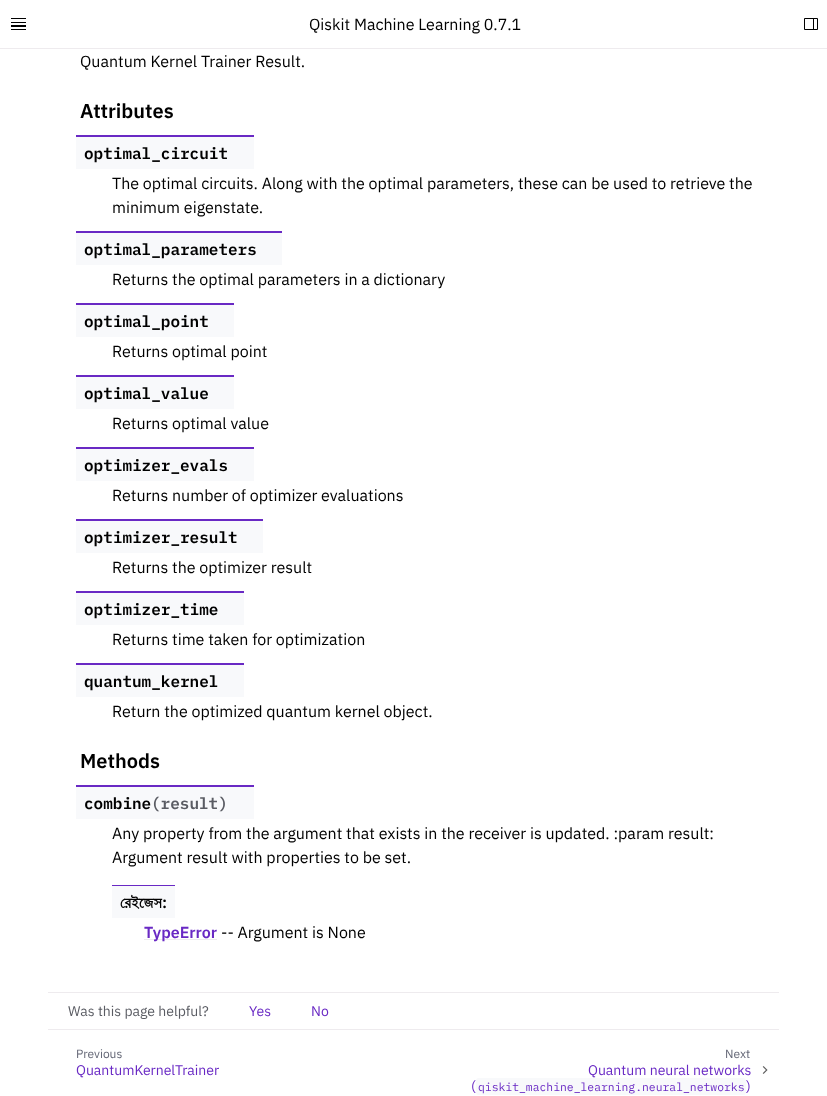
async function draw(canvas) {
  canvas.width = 827
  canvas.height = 1096
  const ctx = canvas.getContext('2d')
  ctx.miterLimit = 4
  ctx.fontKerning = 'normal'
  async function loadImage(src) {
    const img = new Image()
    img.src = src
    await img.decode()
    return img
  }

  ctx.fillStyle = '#fff'
  ctx.fillRect(0, 0, 827, 1096)
  ctx.fillStyle = '#eeebee'
  ctx.fillRect(0, 48, 827, 1)
  ctx.drawImage(await loadImage('image0.png'), 11, 18, 15, 12)
  ctx.font = '16px IBM Plex Sans'
  ctx.fillStyle = '#000'
  ctx.fillText('Qiskit Machine Learning 0.7.1', 309, 30)
  ctx.drawImage(await loadImage('image1.png'), 804, 18, 14, 12)
  ctx.fillText('Quantum Kernel Trainer Result.', 80, 67)
  ctx.font = '600 20px IBM Plex Sans'
  ctx.fillText('Attributes', 80, 118)
  ctx.fillStyle = '#f8f9fb'
  ctx.fillRect(76, 137, 178, 32)
  ctx.fillStyle = '#6929c4'
  ctx.fillRect(76, 135, 178, 2)
  ctx.font = '600 16px IBM Plex Mono'
  ctx.fillStyle = '#000'
  ctx.fillText('optimal_circuit', 84, 159)
  ctx.font = '16px IBM Plex Sans'
  ctx.fillText('The optimal circuits. Along with the optimal parameters, these can be used to retrieve the', 112, 189)
  ctx.fillText('minimum eigenstate.', 112, 213)
  ctx.fillStyle = '#f8f9fb'
  ctx.fillRect(76, 233, 206, 32)
  ctx.fillStyle = '#6929c4'
  ctx.fillRect(76, 231, 206, 2)
  ctx.font = '600 16px IBM Plex Mono'
  ctx.fillStyle = '#000'
  ctx.fillText('optimal_parameters', 84, 255)
  ctx.font = '16px IBM Plex Sans'
  ctx.fillText('Returns the optimal parameters in a dictionary', 112, 285)
  ctx.fillStyle = '#f8f9fb'
  ctx.fillRect(76, 305, 158, 32)
  ctx.fillStyle = '#6929c4'
  ctx.fillRect(76, 303, 158, 2)
  ctx.font = '600 16px IBM Plex Mono'
  ctx.fillStyle = '#000'
  ctx.fillText('optimal_point', 84, 327)
  ctx.font = '16px IBM Plex Sans'
  ctx.fillText('Returns optimal point', 112, 357)
  ctx.fillStyle = '#f8f9fb'
  ctx.fillRect(76, 377, 158, 32)
  ctx.fillStyle = '#6929c4'
  ctx.fillRect(76, 375, 158, 2)
  ctx.font = '600 16px IBM Plex Mono'
  ctx.fillStyle = '#000'
  ctx.fillText('optimal_value', 84, 399)
  ctx.font = '16px IBM Plex Sans'
  ctx.fillText('Returns optimal value', 112, 429)
  ctx.fillStyle = '#f8f9fb'
  ctx.fillRect(76, 449, 178, 32)
  ctx.fillStyle = '#6929c4'
  ctx.fillRect(76, 447, 178, 2)
  ctx.font = '600 16px IBM Plex Mono'
  ctx.fillStyle = '#000'
  ctx.fillText('optimizer_evals', 84, 471)
  ctx.font = '16px IBM Plex Sans'
  ctx.fillText('Returns number of optimizer evaluations', 112, 501)
  ctx.fillStyle = '#f8f9fb'
  ctx.fillRect(76, 521, 187, 32)
  ctx.fillStyle = '#6929c4'
  ctx.fillRect(76, 519, 187, 2)
  ctx.font = '600 16px IBM Plex Mono'
  ctx.fillStyle = '#000'
  ctx.fillText('optimizer_result', 84, 543)
  ctx.font = '16px IBM Plex Sans'
  ctx.fillText('Returns the optimizer result', 112, 573)
  ctx.fillStyle = '#f8f9fb'
  ctx.fillRect(76, 593, 168, 32)
  ctx.fillStyle = '#6929c4'
  ctx.fillRect(76, 591, 168, 2)
  ctx.font = '600 16px IBM Plex Mono'
  ctx.fillStyle = '#000'
  ctx.fillText('optimizer_time', 84, 615)
  ctx.font = '16px IBM Plex Sans'
  ctx.fillText('Returns time taken for optimization', 112, 645)
  ctx.fillStyle = '#f8f9fb'
  ctx.fillRect(76, 665, 168, 32)
  ctx.fillStyle = '#6929c4'
  ctx.fillRect(76, 663, 168, 2)
  ctx.font = '600 16px IBM Plex Mono'
  ctx.fillStyle = '#000'
  ctx.fillText('quantum_kernel', 84, 687)
  ctx.font = '16px IBM Plex Sans'
  ctx.fillText('Return the optimized quantum kernel object.', 112, 717)
  ctx.font = '600 20px IBM Plex Sans'
  ctx.fillText('Methods', 80, 768)
  ctx.fillStyle = '#f8f9fb'
  ctx.fillRect(76, 787, 178, 32)
  ctx.fillStyle = '#6929c4'
  ctx.fillRect(76, 785, 178, 2)
  ctx.font = '600 16px IBM Plex Mono'
  ctx.fillStyle = '#000'
  ctx.fillText('combine', 84, 809)
  ctx.fillStyle = '#5a5c63'
  ctx.fillText('(result)', 151, 809)
  ctx.font = '16px IBM Plex Sans'
  ctx.fillStyle = '#000'
  ctx.fillText('Any property from the argument that exists in the receiver is updated. :param result:', 112, 839)
  ctx.fillText('Argument result with properties to be set.', 112, 863)
  ctx.fillStyle = '#f8f9fb'
  ctx.fillRect(112, 886, 63, 32)
  ctx.fillStyle = '#6929c4'
  ctx.fillRect(112, 885, 63, 1)
  ctx.font = 'bold 16px FreeSans'
  ctx.fillStyle = '#000'
  ctx.fillText('রেইজেস', 120, 908)
  ctx.font = '600 16px IBM Plex Sans'
  ctx.fillText(':', 162, 908)
  ctx.fillStyle = '#eeebee'
  ctx.fillRect(144, 939, 73, 1)
  ctx.fillStyle = '#6929c4'
  ctx.fillText('TypeError', 144, 938)
  ctx.font = '16px IBM Plex Sans'
  ctx.fillStyle = '#000'
  ctx.fillText('-- Argument is None', 221, 938)
  ctx.fillStyle = '#eeebee'
  ctx.fillRect(48, 992, 731, 1)
  ctx.fillRect(48, 1029, 731, 1)
  ctx.font = '14px IBM Plex Sans'
  ctx.fillStyle = '#5a5c63'
  ctx.fillText('Was this page helpful?', 68, 1016)
  ctx.fillStyle = '#6929c4'
  ctx.fillText('Yes', 249, 1016)
  ctx.fillText('No', 311, 1016)
  ctx.font = '12px IBM Plex Sans'
  ctx.fillStyle = '#646776'
  ctx.fillText('Previous', 76, 1058)
  ctx.font = '14px IBM Plex Sans'
  ctx.fillStyle = '#6929c4'
  ctx.fillText('QuantumKernelTrainer', 76, 1075)
  ctx.font = '12px IBM Plex Sans'
  ctx.fillStyle = '#646776'
  ctx.fillText('Next', 725, 1058)
  ctx.font = '14px IBM Plex Sans'
  ctx.fillStyle = '#6929c4'
  ctx.fillText('Quantum neural networks', 588, 1075)
  ctx.fillText('(', 471, 1091)
  ctx.fillStyle = '#f8f9fb'
  ctx.beginPath()
  ctx.roundRect(476, 1078, 270, 17, 2.5)
  ctx.fill()
  ctx.font = '11.4px IBM Plex Mono'
  ctx.fillStyle = '#6929c4'
  ctx.fillText('qiskit_machine_learning.neural_networks', 478, 1091)
  ctx.font = '14px IBM Plex Sans'
  ctx.fillText(')', 746, 1091)
  ctx.drawImage(await loadImage('image2.png'), 762, 1066, 6, 8)
}

draw(document.querySelector('canvas'))
